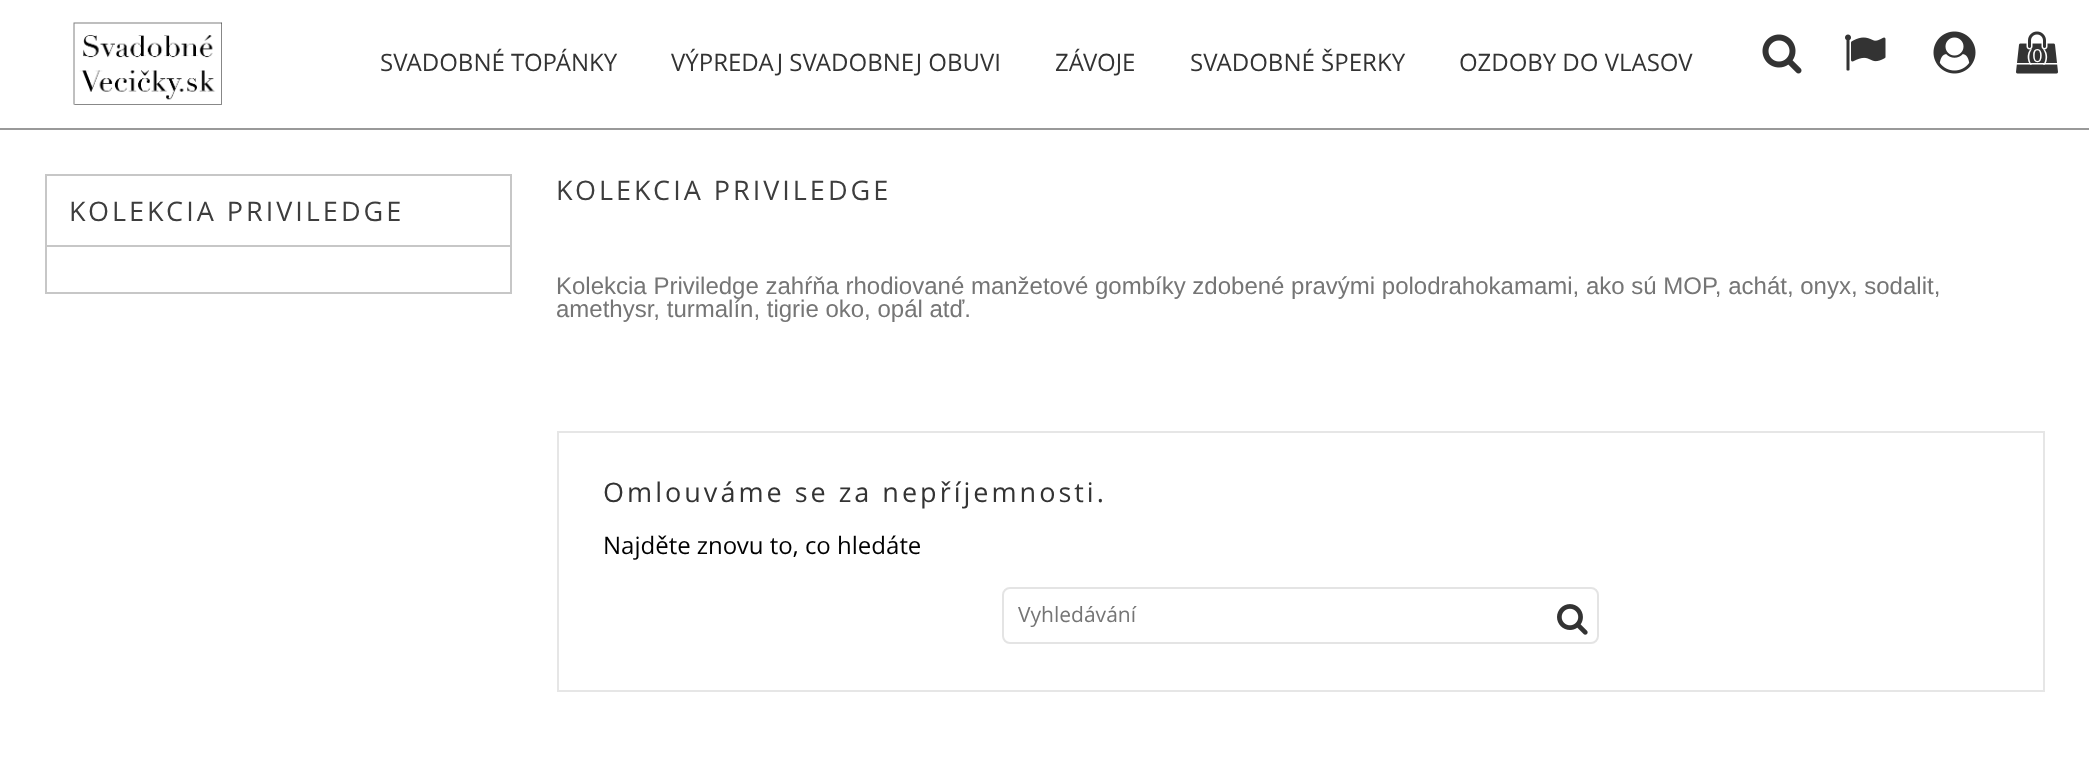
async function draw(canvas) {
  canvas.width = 2089
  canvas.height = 764
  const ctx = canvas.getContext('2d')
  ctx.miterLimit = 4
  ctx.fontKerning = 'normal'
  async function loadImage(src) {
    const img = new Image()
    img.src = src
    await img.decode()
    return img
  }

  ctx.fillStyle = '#fff'
  ctx.fillRect(0, 0, 2089, 764)
  ctx.fillStyle = '#999'
  ctx.fillRect(0, 128, 2089, 2)
  ctx.drawImage(await loadImage('image0.png'), 73, 22, 149, 83)
  ctx.font = '24px Open Sans'
  ctx.fillStyle = '#333'
  ctx.fillText('SVADOBNÉ TOPÁNKY', 380, 71)
  ctx.fillText('VÝPREDAJ SVADOBNEJ OBUVI', 671, 71)
  ctx.fillText('ZÁVOJE', 1055, 71)
  ctx.fillText('SVADOBNÉ ŠPERKY', 1190, 71)
  ctx.fillText('OZDOBY DO VLASOV', 1459, 71)
  ctx.drawImage(await loadImage('image1.png'), 1762, 34, 40, 40)
  ctx.drawImage(await loadImage('image2.png'), 1845, 34, 41, 37)
  ctx.drawImage(await loadImage('image3.png'), 1933, 31, 43, 43)
  ctx.drawImage(await loadImage('image4.png'), 2016, 31, 42, 43)
  ctx.font = '18px Open Sans'
  ctx.fillStyle = '#fff'
  ctx.fillText('(0)', 2027, 62)
  ctx.strokeStyle = '#c7c7c7'
  ctx.lineWidth = 2
  ctx.strokeRect(46, 175, 465, 118)
  ctx.fillStyle = '#c7c7c7'
  ctx.fillRect(47, 245, 463, 2)
  ctx.letterSpacing = '3px'
  ctx.font = '27px Open Sans'
  ctx.fillStyle = '#3d3d3d'
  ctx.fillText('KOLEKCIA PRIVILEDGE', 69, 221)
  ctx.fillText('KOLEKCIA PRIVILEDGE', 556, 200)
  ctx.letterSpacing = '0px'
  ctx.font = '24px Liberation Sans'
  ctx.fillStyle = '#757575'
  ctx.fillText('Kolekcia Priviledge zahŕňa rhodiované manžetové gombíky zdobené pravými polodrahokamami, ako sú MOP, achát, onyx, sodalit,', 556, 294)
  ctx.fillText('amethysr, turmalín, tigrie oko, opál atď.', 556, 317)
  ctx.strokeStyle = '#e6e6e6'
  ctx.strokeRect(558, 432, 1486, 259)
  ctx.letterSpacing = '3px'
  ctx.font = '27px Open Sans'
  ctx.fillStyle = '#333'
  ctx.fillText('Omlouváme se za nepříjemnosti.', 603, 502)
  ctx.letterSpacing = '0px'
  ctx.font = '24px Open Sans'
  ctx.fillStyle = '#000'
  ctx.fillText('Najděte znovu to, co hledáte', 603, 554)
  ctx.beginPath()
  ctx.roundRect(1003, 588, 595, 55, 7)
  ctx.strokeStyle = '#e4e4e4'
  ctx.stroke()
  ctx.font = '21px Open Sans'
  ctx.fillStyle = '#757575'
  ctx.fillText('Vyhledávání', 1018, 622)
  ctx.drawImage(await loadImage('image5.png'), 1557, 604, 31, 31)
}

draw(document.querySelector('canvas'))
